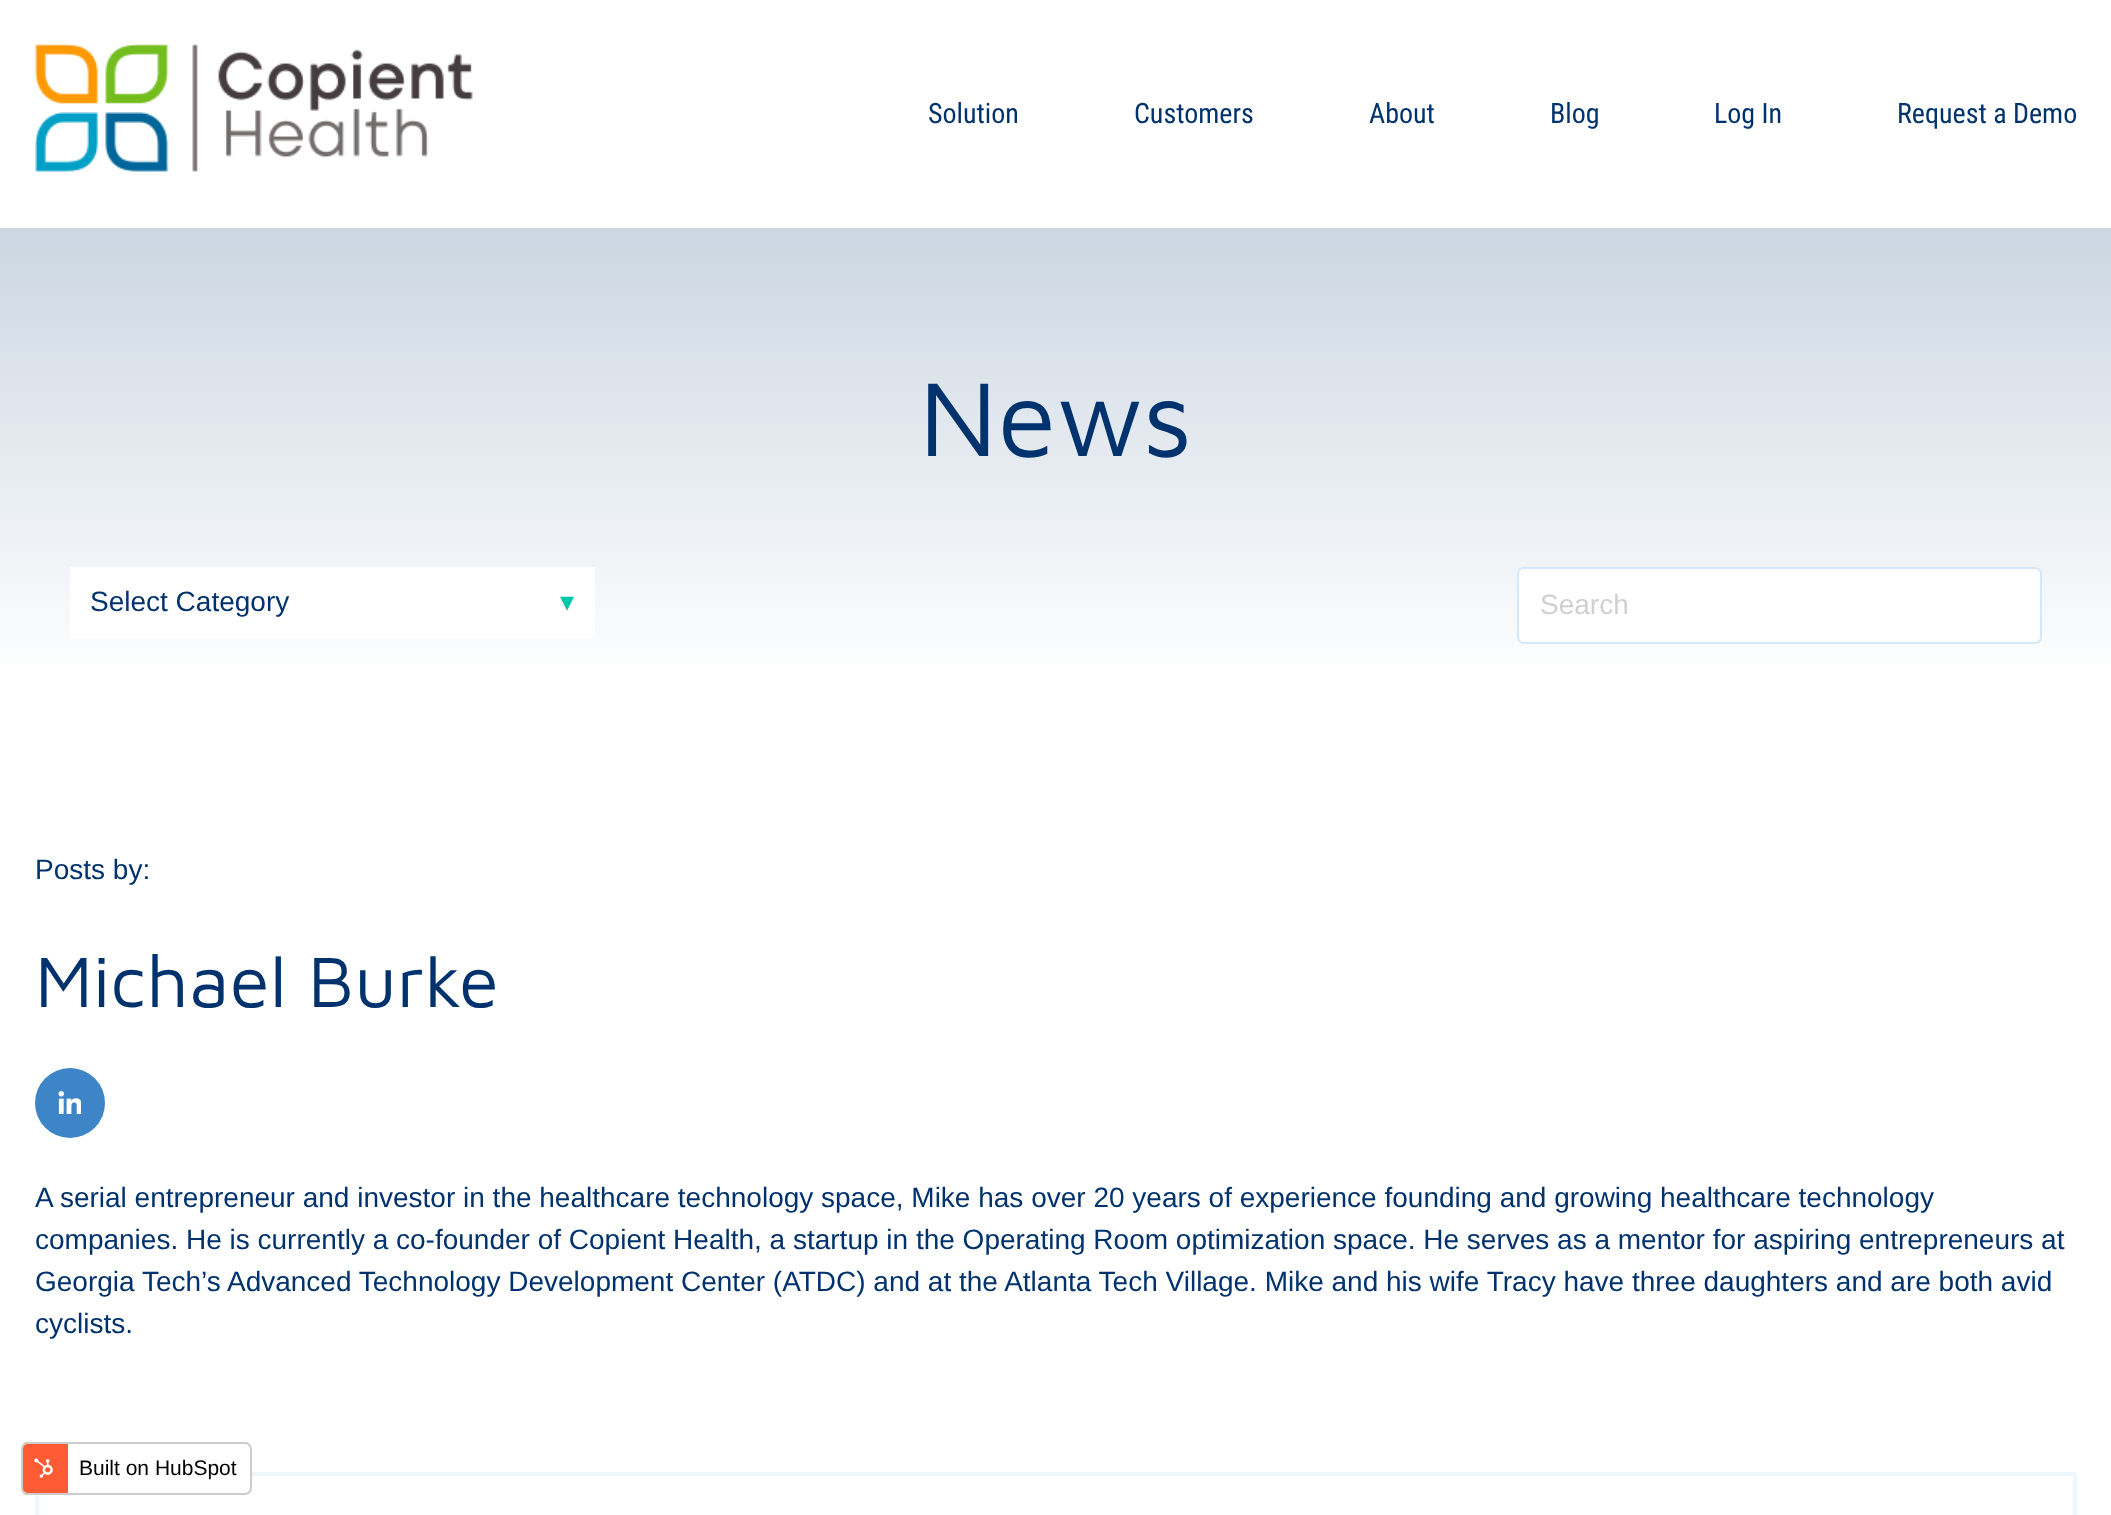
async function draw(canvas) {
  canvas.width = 2111
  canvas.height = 1515
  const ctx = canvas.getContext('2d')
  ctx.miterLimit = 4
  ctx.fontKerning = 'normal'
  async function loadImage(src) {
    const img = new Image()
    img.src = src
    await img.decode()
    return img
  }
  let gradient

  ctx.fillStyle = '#fff'
  ctx.fillRect(0, 0, 2111, 1515)
  ctx.drawImage(await loadImage('image0.png'), 35, 43, 438, 129)
  ctx.font = '28px Roboto Condensed'
  ctx.fillStyle = '#00326d'
  ctx.fillText('Solution', 928, 123)
  ctx.fillText('Customers', 1134, 123)
  ctx.fillText('About', 1369, 123)
  ctx.fillText('Blog', 1550, 123)
  ctx.fillText('Log In', 1714, 123)
  ctx.fillText('Request a Demo', 1897, 123)
  gradient = ctx.createLinearGradient(1056, 227, 1056, 686)
  gradient.addColorStop(0, '#cbd6e2')
  gradient.addColorStop(1, '#fff')
  ctx.fillStyle = gradient
  ctx.fillRect(0, 228, 2111, 436)
  ctx.font = '108.5px Maven Pro'
  ctx.fillStyle = '#00326d'
  ctx.fillText('News', 919, 456)
  ctx.fillStyle = '#fff'
  ctx.fillRect(70, 567, 525, 72)
  ctx.font = '28px Liberation Sans'
  ctx.fillStyle = '#00326d'
  ctx.fillText('Select Category', 90, 611)
  ctx.font = '28px DejaVu Sans'
  ctx.fillStyle = '#00c6ab'
  ctx.fillText('▾', 560, 611)
  ctx.fillStyle = '#fff'
  ctx.beginPath()
  ctx.roundRect(1518, 568, 523, 75, 6)
  ctx.fill()
  ctx.strokeStyle = '#d2e9fc'
  ctx.lineWidth = 2
  ctx.stroke()
  ctx.font = '28px Liberation Sans'
  ctx.fillStyle = '#d0d0d0'
  ctx.fillText('Search', 1540, 614)
  ctx.fillStyle = '#00326d'
  ctx.fillText('Posts by:', 35, 879)
  ctx.font = '73.5px Maven Pro'
  ctx.fillText('Michael Burke', 35, 1007)
  ctx.fillStyle = '#3d85c6'
  ctx.beginPath()
  ctx.arc(70, 1103, 35, 0, 2 * Math.PI)
  ctx.fill()
  ctx.drawImage(await loadImage('image1.png'), 58, 1091, 23, 23)
  ctx.font = '28px Liberation Sans'
  ctx.fillStyle = '#00326d'
  ctx.fillText('A serial entrepreneur and investor in the healthcare technology space, Mike has over 20 years of experience founding and growing healthcare technology', 35, 1207)
  ctx.fillText('companies. He is currently a co-founder of Copient Health, a startup in the Operating Room optimization space. He serves as a mentor for aspiring entrepreneurs at', 35, 1249)
  ctx.fillText('Georgia Tech’s Advanced Technology Development Center (ATDC) and at the Atlanta Tech Village. Mike and his wife Tracy have three daughters and are both avid', 35, 1291)
  ctx.fillText('cyclists.', 35, 1333)
  ctx.strokeStyle = '#eff7fe'
  ctx.lineWidth = 4
  ctx.strokeRect(37, 1474, 2038, 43)
  ctx.save()
  ctx.beginPath()
  ctx.roundRect(21, 1442, 231, 53, 7)
  ctx.clip()
  ctx.fillStyle = '#ff5c35'
  ctx.fillRect(23, 1442, 45, 53)
  ctx.fillStyle = '#fff'
  ctx.fillRect(68, 1442, 182, 53)
  ctx.restore()
  ctx.beginPath()
  ctx.roundRect(22, 1443, 229, 51, 6)
  ctx.strokeStyle = '#ccc'
  ctx.lineWidth = 2
  ctx.stroke()
  ctx.drawImage(await loadImage('image2.png'), 34, 1458, 19, 20)
  ctx.font = '21px Liberation Sans'
  ctx.fillStyle = '#000'
  ctx.fillText('Built on HubSpot', 79, 1475)
}

draw(document.querySelector('canvas'))
